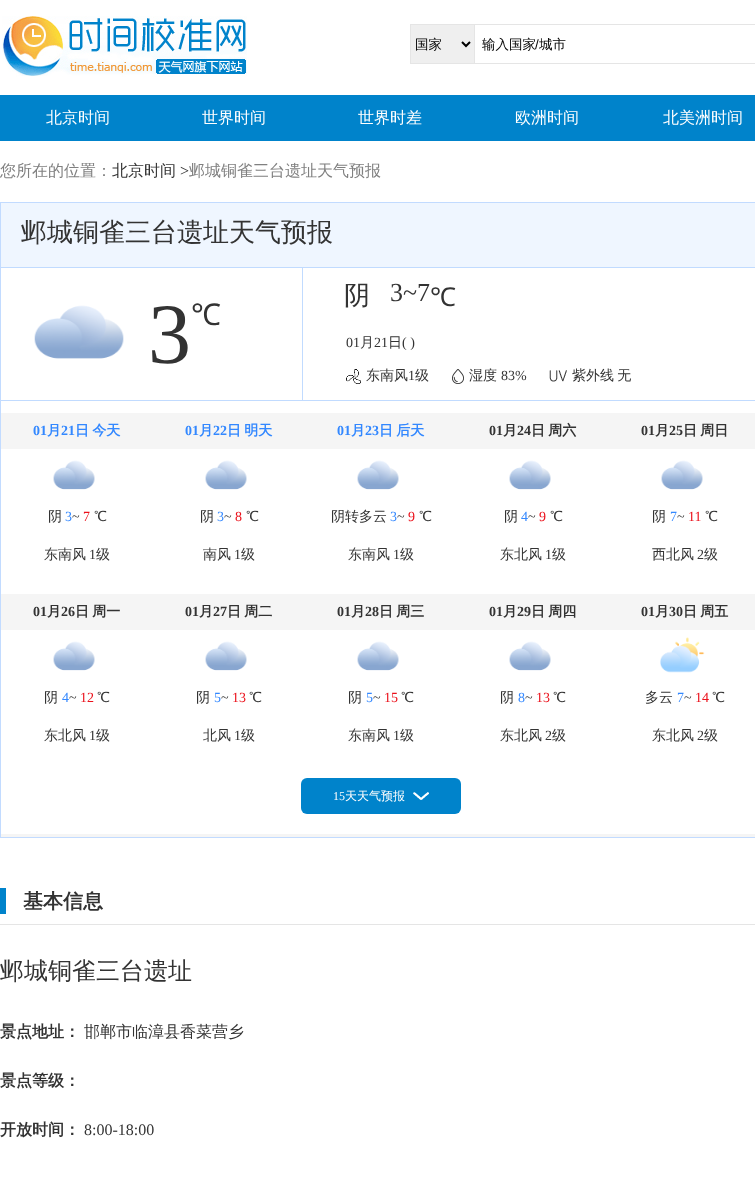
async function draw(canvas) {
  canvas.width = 755
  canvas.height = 1179
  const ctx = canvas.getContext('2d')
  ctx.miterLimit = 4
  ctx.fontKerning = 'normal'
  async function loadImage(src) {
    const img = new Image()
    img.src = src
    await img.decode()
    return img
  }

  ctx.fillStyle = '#fff'
  ctx.fillRect(0, 0, 755, 1179)
  ctx.drawImage(await loadImage('image0.png'), 2, 16, 245, 61)
  ctx.fillStyle = '#efefef'
  ctx.fillRect(411, 25, 63, 38)
  ctx.fillStyle = '#e5e5e5'
  ctx.fillRect(410, 24, 64, 1)
  ctx.fillRect(410, 63, 64, 1)
  ctx.fillRect(410, 24, 1, 40)
  ctx.beginPath()
  ctx.moveTo(462, 42)
  ctx.lineTo(466, 46)
  ctx.lineTo(470, 42)
  ctx.strokeStyle = '#000'
  ctx.lineWidth = 2
  ctx.stroke()
  ctx.font = '500 13.5px WenQuanYi Zen Hei'
  ctx.fillStyle = '#000'
  ctx.fillText('国家', 415, 49)
  ctx.strokeStyle = '#e5e5e5'
  ctx.lineWidth = 1
  ctx.strokeRect(474.5, 24.5, 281, 39)
  ctx.fillText('输入国家', 482, 49)
  ctx.font = '13.5px Liberation Sans'
  ctx.fillText('/', 535, 49)
  ctx.font = '500 13.5px WenQuanYi Zen Hei'
  ctx.fillText('城市', 539, 49)
  ctx.fillStyle = '#0083cb'
  ctx.fillRect(0, 95, 755, 46)
  ctx.font = '500 16px WenQuanYi Zen Hei'
  ctx.fillStyle = '#fff'
  ctx.fillText('北京时间', 46, 123)
  ctx.fillText('世界时间', 202, 123)
  ctx.fillText('世界时差', 358, 123)
  ctx.fillText('欧洲时间', 515, 123)
  ctx.fillText('北美洲时间', 663, 123)
  ctx.fillStyle = '#808080'
  ctx.fillText('您所在的位置：', 0, 176)
  ctx.fillStyle = '#333'
  ctx.fillText('北京时间', 112, 176)
  ctx.font = '16px Liberation Serif'
  ctx.fillText('>', 180, 176)
  ctx.font = '500 16px WenQuanYi Zen Hei'
  ctx.fillStyle = '#808080'
  ctx.fillText('邺城铜雀三台遗址天气预报', 189, 176)
  ctx.strokeStyle = '#c2dbff'
  ctx.strokeRect(0.5, 202.5, 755, 635)
  ctx.fillStyle = '#eff6ff'
  ctx.fillRect(1, 203, 754, 64)
  ctx.fillStyle = '#c1dbff'
  ctx.fillRect(1, 267, 754, 1)
  ctx.font = '500 26px WenQuanYi Zen Hei'
  ctx.fillStyle = '#333'
  ctx.fillText('邺城铜雀三台遗址天气预报', 21, 241)
  ctx.fillStyle = '#c1dbff'
  ctx.fillRect(1, 400, 754, 1)
  ctx.fillRect(302, 268, 1, 132)
  ctx.drawImage(await loadImage('image1.png'), 34, 305, 90, 54)
  ctx.font = '86px Liberation Serif'
  ctx.fillStyle = '#333'
  ctx.fillText('3', 148, 363)
  ctx.font = '30px Noto Sans'
  ctx.fillText('℃', 191, 325)
  ctx.font = '500 26px WenQuanYi Zen Hei'
  ctx.fillText('阴', 344, 304)
  ctx.font = '26px Liberation Serif'
  ctx.fillText('3~7', 390, 301)
  ctx.font = '26px Noto Sans'
  ctx.fillText('℃', 430, 306)
  ctx.font = '14px Liberation Serif'
  ctx.fillText('01', 346, 347)
  ctx.font = '500 14px WenQuanYi Zen Hei'
  ctx.fillText('月', 360, 347)
  ctx.font = '14px Liberation Serif'
  ctx.fillText('21', 374, 347)
  ctx.font = '500 14px WenQuanYi Zen Hei'
  ctx.fillText('日', 388, 347)
  ctx.font = '14px Liberation Serif'
  ctx.fillText('( )', 402, 347)
  ctx.drawImage(await loadImage('image2.png'), 346, 369, 15, 15)
  ctx.font = '500 14px WenQuanYi Zen Hei'
  ctx.fillText('东南风', 366, 380)
  ctx.font = '14px Liberation Serif'
  ctx.fillText('1', 408, 380)
  ctx.font = '500 14px WenQuanYi Zen Hei'
  ctx.fillText('级', 415, 380)
  ctx.drawImage(await loadImage('image3.png'), 452, 369, 12, 15)
  ctx.fillText('湿度', 469, 380)
  ctx.font = '14px Liberation Serif'
  ctx.fillText('83%', 501, 380)
  ctx.drawImage(await loadImage('image4.png'), 549, 370, 18, 12)
  ctx.wordSpacing = '-1px'
  ctx.font = '500 14px WenQuanYi Zen Hei'
  ctx.fillText('紫外线 无', 572, 380)
  ctx.fillStyle = '#f5f5f5'
  ctx.fillRect(1, 413, 754, 36)
  ctx.wordSpacing = '0px'
  ctx.font = 'bold 14px Liberation Serif'
  ctx.fillStyle = '#38f'
  ctx.fillText('01', 33, 435)
  ctx.font = 'bold 14px WenQuanYi Zen Hei'
  ctx.fillText('月', 47, 435)
  ctx.font = 'bold 14px Liberation Serif'
  ctx.fillText('21', 61, 435)
  ctx.wordSpacing = '-1px'
  ctx.font = 'bold 14px WenQuanYi Zen Hei'
  ctx.fillText('日 今天', 75, 435)
  ctx.drawImage(await loadImage('image5.png'), 53, 460, 42, 30)
  ctx.wordSpacing = '0px'
  ctx.font = '500 14px WenQuanYi Zen Hei'
  ctx.fillStyle = '#333'
  ctx.fillText('阴', 48, 521)
  ctx.font = '14px Liberation Serif'
  ctx.fillStyle = '#38f'
  ctx.fillText('3', 65, 521)
  ctx.fillStyle = '#333'
  ctx.fillText('~', 72, 521)
  ctx.fillStyle = '#eb111b'
  ctx.fillText('7', 83, 521)
  ctx.font = '500 14px WenQuanYi Zen Hei'
  ctx.fillStyle = '#333'
  ctx.fillText('℃', 94, 521)
  ctx.fillText('东南风', 44, 559)
  ctx.font = '14px Liberation Serif'
  ctx.fillText('1', 89, 559)
  ctx.font = '500 14px WenQuanYi Zen Hei'
  ctx.fillText('级', 96, 559)
  ctx.font = 'bold 14px Liberation Serif'
  ctx.fillStyle = '#38f'
  ctx.fillText('01', 185, 435)
  ctx.font = 'bold 14px WenQuanYi Zen Hei'
  ctx.fillText('月', 199, 435)
  ctx.font = 'bold 14px Liberation Serif'
  ctx.fillText('22', 213, 435)
  ctx.wordSpacing = '-1px'
  ctx.font = 'bold 14px WenQuanYi Zen Hei'
  ctx.fillText('日 明天', 227, 435)
  ctx.drawImage(await loadImage('image6.png'), 205, 460, 42, 30)
  ctx.wordSpacing = '0px'
  ctx.font = '500 14px WenQuanYi Zen Hei'
  ctx.fillStyle = '#333'
  ctx.fillText('阴', 200, 521)
  ctx.font = '14px Liberation Serif'
  ctx.fillStyle = '#38f'
  ctx.fillText('3', 217, 521)
  ctx.fillStyle = '#333'
  ctx.fillText('~', 224, 521)
  ctx.fillStyle = '#eb111b'
  ctx.fillText('8', 235, 521)
  ctx.font = '500 14px WenQuanYi Zen Hei'
  ctx.fillStyle = '#333'
  ctx.fillText('℃', 246, 521)
  ctx.fillText('南风', 203, 559)
  ctx.font = '14px Liberation Serif'
  ctx.fillText('1', 234, 559)
  ctx.font = '500 14px WenQuanYi Zen Hei'
  ctx.fillText('级', 241, 559)
  ctx.font = 'bold 14px Liberation Serif'
  ctx.fillStyle = '#38f'
  ctx.fillText('01', 337, 435)
  ctx.font = 'bold 14px WenQuanYi Zen Hei'
  ctx.fillText('月', 351, 435)
  ctx.font = 'bold 14px Liberation Serif'
  ctx.fillText('23', 365, 435)
  ctx.wordSpacing = '-1px'
  ctx.font = 'bold 14px WenQuanYi Zen Hei'
  ctx.fillText('日 后天', 379, 435)
  ctx.drawImage(await loadImage('image5.png'), 357, 460, 42, 30)
  ctx.wordSpacing = '0px'
  ctx.font = '500 14px WenQuanYi Zen Hei'
  ctx.fillStyle = '#333'
  ctx.fillText('阴转多云', 331, 521)
  ctx.font = '14px Liberation Serif'
  ctx.fillStyle = '#38f'
  ctx.fillText('3', 390, 521)
  ctx.fillStyle = '#333'
  ctx.fillText('~', 397, 521)
  ctx.fillStyle = '#eb111b'
  ctx.fillText('9', 408, 521)
  ctx.font = '500 14px WenQuanYi Zen Hei'
  ctx.fillStyle = '#333'
  ctx.fillText('℃', 419, 521)
  ctx.fillText('东南风', 348, 559)
  ctx.font = '14px Liberation Serif'
  ctx.fillText('1', 393, 559)
  ctx.font = '500 14px WenQuanYi Zen Hei'
  ctx.fillText('级', 400, 559)
  ctx.font = 'bold 14px Liberation Serif'
  ctx.fillText('01', 489, 435)
  ctx.font = 'bold 14px WenQuanYi Zen Hei'
  ctx.fillText('月', 503, 435)
  ctx.font = 'bold 14px Liberation Serif'
  ctx.fillText('24', 517, 435)
  ctx.wordSpacing = '-1px'
  ctx.font = 'bold 14px WenQuanYi Zen Hei'
  ctx.fillText('日 周六', 531, 435)
  ctx.drawImage(await loadImage('image5.png'), 509, 460, 42, 30)
  ctx.wordSpacing = '0px'
  ctx.font = '500 14px WenQuanYi Zen Hei'
  ctx.fillText('阴', 504, 521)
  ctx.font = '14px Liberation Serif'
  ctx.fillStyle = '#38f'
  ctx.fillText('4', 521, 521)
  ctx.fillStyle = '#333'
  ctx.fillText('~', 528, 521)
  ctx.fillStyle = '#eb111b'
  ctx.fillText('9', 539, 521)
  ctx.font = '500 14px WenQuanYi Zen Hei'
  ctx.fillStyle = '#333'
  ctx.fillText('℃', 550, 521)
  ctx.fillText('东北风', 500, 559)
  ctx.font = '14px Liberation Serif'
  ctx.fillText('1', 545, 559)
  ctx.font = '500 14px WenQuanYi Zen Hei'
  ctx.fillText('级', 552, 559)
  ctx.font = 'bold 14px Liberation Serif'
  ctx.fillText('01', 641, 435)
  ctx.font = 'bold 14px WenQuanYi Zen Hei'
  ctx.fillText('月', 655, 435)
  ctx.font = 'bold 14px Liberation Serif'
  ctx.fillText('25', 669, 435)
  ctx.wordSpacing = '-1px'
  ctx.font = 'bold 14px WenQuanYi Zen Hei'
  ctx.fillText('日 周日', 683, 435)
  ctx.drawImage(await loadImage('image5.png'), 661, 460, 42, 30)
  ctx.wordSpacing = '0px'
  ctx.font = '500 14px WenQuanYi Zen Hei'
  ctx.fillText('阴', 652, 521)
  ctx.font = '14px Liberation Serif'
  ctx.fillStyle = '#38f'
  ctx.fillText('7', 670, 521)
  ctx.fillStyle = '#333'
  ctx.fillText('~', 677, 521)
  ctx.fillStyle = '#eb111b'
  ctx.fillText('11', 688, 521)
  ctx.font = '500 14px WenQuanYi Zen Hei'
  ctx.fillStyle = '#333'
  ctx.fillText('℃', 705, 521)
  ctx.fillText('西北风', 652, 559)
  ctx.font = '14px Liberation Serif'
  ctx.fillText('2', 697, 559)
  ctx.font = '500 14px WenQuanYi Zen Hei'
  ctx.fillText('级', 704, 559)
  ctx.fillStyle = '#f5f5f5'
  ctx.fillRect(1, 594, 754, 36)
  ctx.font = 'bold 14px Liberation Serif'
  ctx.fillStyle = '#333'
  ctx.fillText('01', 33, 616)
  ctx.font = 'bold 14px WenQuanYi Zen Hei'
  ctx.fillText('月', 47, 616)
  ctx.font = 'bold 14px Liberation Serif'
  ctx.fillText('26', 61, 616)
  ctx.wordSpacing = '-1px'
  ctx.font = 'bold 14px WenQuanYi Zen Hei'
  ctx.fillText('日 周一', 75, 616)
  ctx.drawImage(await loadImage('image7.png'), 53, 641, 42, 30)
  ctx.wordSpacing = '0px'
  ctx.font = '500 14px WenQuanYi Zen Hei'
  ctx.fillText('阴', 44, 702)
  ctx.font = '14px Liberation Serif'
  ctx.fillStyle = '#38f'
  ctx.fillText('4', 62, 702)
  ctx.fillStyle = '#333'
  ctx.fillText('~', 69, 702)
  ctx.fillStyle = '#eb111b'
  ctx.fillText('12', 80, 702)
  ctx.font = '500 14px WenQuanYi Zen Hei'
  ctx.fillStyle = '#333'
  ctx.fillText('℃', 97, 702)
  ctx.fillText('东北风', 44, 740)
  ctx.font = '14px Liberation Serif'
  ctx.fillText('1', 89, 740)
  ctx.font = '500 14px WenQuanYi Zen Hei'
  ctx.fillText('级', 96, 740)
  ctx.font = 'bold 14px Liberation Serif'
  ctx.fillText('01', 185, 616)
  ctx.font = 'bold 14px WenQuanYi Zen Hei'
  ctx.fillText('月', 199, 616)
  ctx.font = 'bold 14px Liberation Serif'
  ctx.fillText('27', 213, 616)
  ctx.wordSpacing = '-1px'
  ctx.font = 'bold 14px WenQuanYi Zen Hei'
  ctx.fillText('日 周二', 227, 616)
  ctx.drawImage(await loadImage('image8.png'), 205, 641, 42, 30)
  ctx.wordSpacing = '0px'
  ctx.font = '500 14px WenQuanYi Zen Hei'
  ctx.fillText('阴', 196, 702)
  ctx.font = '14px Liberation Serif'
  ctx.fillStyle = '#38f'
  ctx.fillText('5', 214, 702)
  ctx.fillStyle = '#333'
  ctx.fillText('~', 221, 702)
  ctx.fillStyle = '#eb111b'
  ctx.fillText('13', 232, 702)
  ctx.font = '500 14px WenQuanYi Zen Hei'
  ctx.fillStyle = '#333'
  ctx.fillText('℃', 249, 702)
  ctx.fillText('北风', 203, 740)
  ctx.font = '14px Liberation Serif'
  ctx.fillText('1', 234, 740)
  ctx.font = '500 14px WenQuanYi Zen Hei'
  ctx.fillText('级', 241, 740)
  ctx.font = 'bold 14px Liberation Serif'
  ctx.fillText('01', 337, 616)
  ctx.font = 'bold 14px WenQuanYi Zen Hei'
  ctx.fillText('月', 351, 616)
  ctx.font = 'bold 14px Liberation Serif'
  ctx.fillText('28', 365, 616)
  ctx.wordSpacing = '-1px'
  ctx.font = 'bold 14px WenQuanYi Zen Hei'
  ctx.fillText('日 周三', 379, 616)
  ctx.drawImage(await loadImage('image7.png'), 357, 641, 42, 30)
  ctx.wordSpacing = '0px'
  ctx.font = '500 14px WenQuanYi Zen Hei'
  ctx.fillText('阴', 348, 702)
  ctx.font = '14px Liberation Serif'
  ctx.fillStyle = '#38f'
  ctx.fillText('5', 366, 702)
  ctx.fillStyle = '#333'
  ctx.fillText('~', 373, 702)
  ctx.fillStyle = '#eb111b'
  ctx.fillText('15', 384, 702)
  ctx.font = '500 14px WenQuanYi Zen Hei'
  ctx.fillStyle = '#333'
  ctx.fillText('℃', 401, 702)
  ctx.fillText('东南风', 348, 740)
  ctx.font = '14px Liberation Serif'
  ctx.fillText('1', 393, 740)
  ctx.font = '500 14px WenQuanYi Zen Hei'
  ctx.fillText('级', 400, 740)
  ctx.font = 'bold 14px Liberation Serif'
  ctx.fillText('01', 489, 616)
  ctx.font = 'bold 14px WenQuanYi Zen Hei'
  ctx.fillText('月', 503, 616)
  ctx.font = 'bold 14px Liberation Serif'
  ctx.fillText('29', 517, 616)
  ctx.wordSpacing = '-1px'
  ctx.font = 'bold 14px WenQuanYi Zen Hei'
  ctx.fillText('日 周四', 531, 616)
  ctx.drawImage(await loadImage('image7.png'), 509, 641, 42, 30)
  ctx.wordSpacing = '0px'
  ctx.font = '500 14px WenQuanYi Zen Hei'
  ctx.fillText('阴', 500, 702)
  ctx.font = '14px Liberation Serif'
  ctx.fillStyle = '#38f'
  ctx.fillText('8', 518, 702)
  ctx.fillStyle = '#333'
  ctx.fillText('~', 525, 702)
  ctx.fillStyle = '#eb111b'
  ctx.fillText('13', 536, 702)
  ctx.font = '500 14px WenQuanYi Zen Hei'
  ctx.fillStyle = '#333'
  ctx.fillText('℃', 553, 702)
  ctx.fillText('东北风', 500, 740)
  ctx.font = '14px Liberation Serif'
  ctx.fillText('2', 545, 740)
  ctx.font = '500 14px WenQuanYi Zen Hei'
  ctx.fillText('级', 552, 740)
  ctx.font = 'bold 14px Liberation Serif'
  ctx.fillText('01', 641, 616)
  ctx.font = 'bold 14px WenQuanYi Zen Hei'
  ctx.fillText('月', 655, 616)
  ctx.font = 'bold 14px Liberation Serif'
  ctx.fillText('30', 669, 616)
  ctx.wordSpacing = '-1px'
  ctx.font = 'bold 14px WenQuanYi Zen Hei'
  ctx.fillText('日 周五', 683, 616)
  ctx.drawImage(await loadImage('image9.png'), 660, 637, 45, 36)
  ctx.wordSpacing = '0px'
  ctx.font = '500 14px WenQuanYi Zen Hei'
  ctx.fillText('多云', 645, 702)
  ctx.font = '14px Liberation Serif'
  ctx.fillStyle = '#38f'
  ctx.fillText('7', 677, 702)
  ctx.fillStyle = '#333'
  ctx.fillText('~', 684, 702)
  ctx.fillStyle = '#eb111b'
  ctx.fillText('14', 695, 702)
  ctx.font = '500 14px WenQuanYi Zen Hei'
  ctx.fillStyle = '#333'
  ctx.fillText('℃', 712, 702)
  ctx.fillText('东北风', 652, 740)
  ctx.font = '14px Liberation Serif'
  ctx.fillText('2', 697, 740)
  ctx.font = '500 14px WenQuanYi Zen Hei'
  ctx.fillText('级', 704, 740)
  ctx.fillStyle = '#0083cb'
  ctx.beginPath()
  ctx.roundRect(301, 778, 160, 36, 6)
  ctx.fill()
  ctx.font = '12px Liberation Serif'
  ctx.fillStyle = '#fff'
  ctx.fillText('15', 333, 800)
  ctx.font = '500 12px WenQuanYi Zen Hei'
  ctx.fillText('天天气预报', 345, 800)
  ctx.drawImage(await loadImage('image10.png'), 413, 792, 16, 8)
  ctx.fillStyle = '#f5f5f5'
  ctx.fillRect(1, 834, 754, 3)
  ctx.fillStyle = '#0083cb'
  ctx.fillRect(0, 888, 6, 26)
  ctx.font = 'bold 20px WenQuanYi Zen Hei'
  ctx.fillStyle = '#333'
  ctx.fillText('基本信息', 23, 908)
  ctx.fillStyle = '#e5e5e5'
  ctx.fillRect(0, 924, 755, 1)
  ctx.font = '500 24px WenQuanYi Zen Hei'
  ctx.fillStyle = '#333'
  ctx.fillText('邺城铜雀三台遗址', 0, 979)
  ctx.font = 'bold 16px WenQuanYi Zen Hei'
  ctx.fillText('景点地址：', 0, 1037)
  ctx.font = '500 16px WenQuanYi Zen Hei'
  ctx.fillText('邯郸市临漳县香菜营乡', 84, 1037)
  ctx.font = 'bold 16px WenQuanYi Zen Hei'
  ctx.fillText('景点等级：', 0, 1086)
  ctx.fillText('开放时间：', 0, 1135)
  ctx.font = '16px Liberation Serif'
  ctx.fillText('8:00-18:00', 84, 1135)
}

draw(document.querySelector('canvas'))
